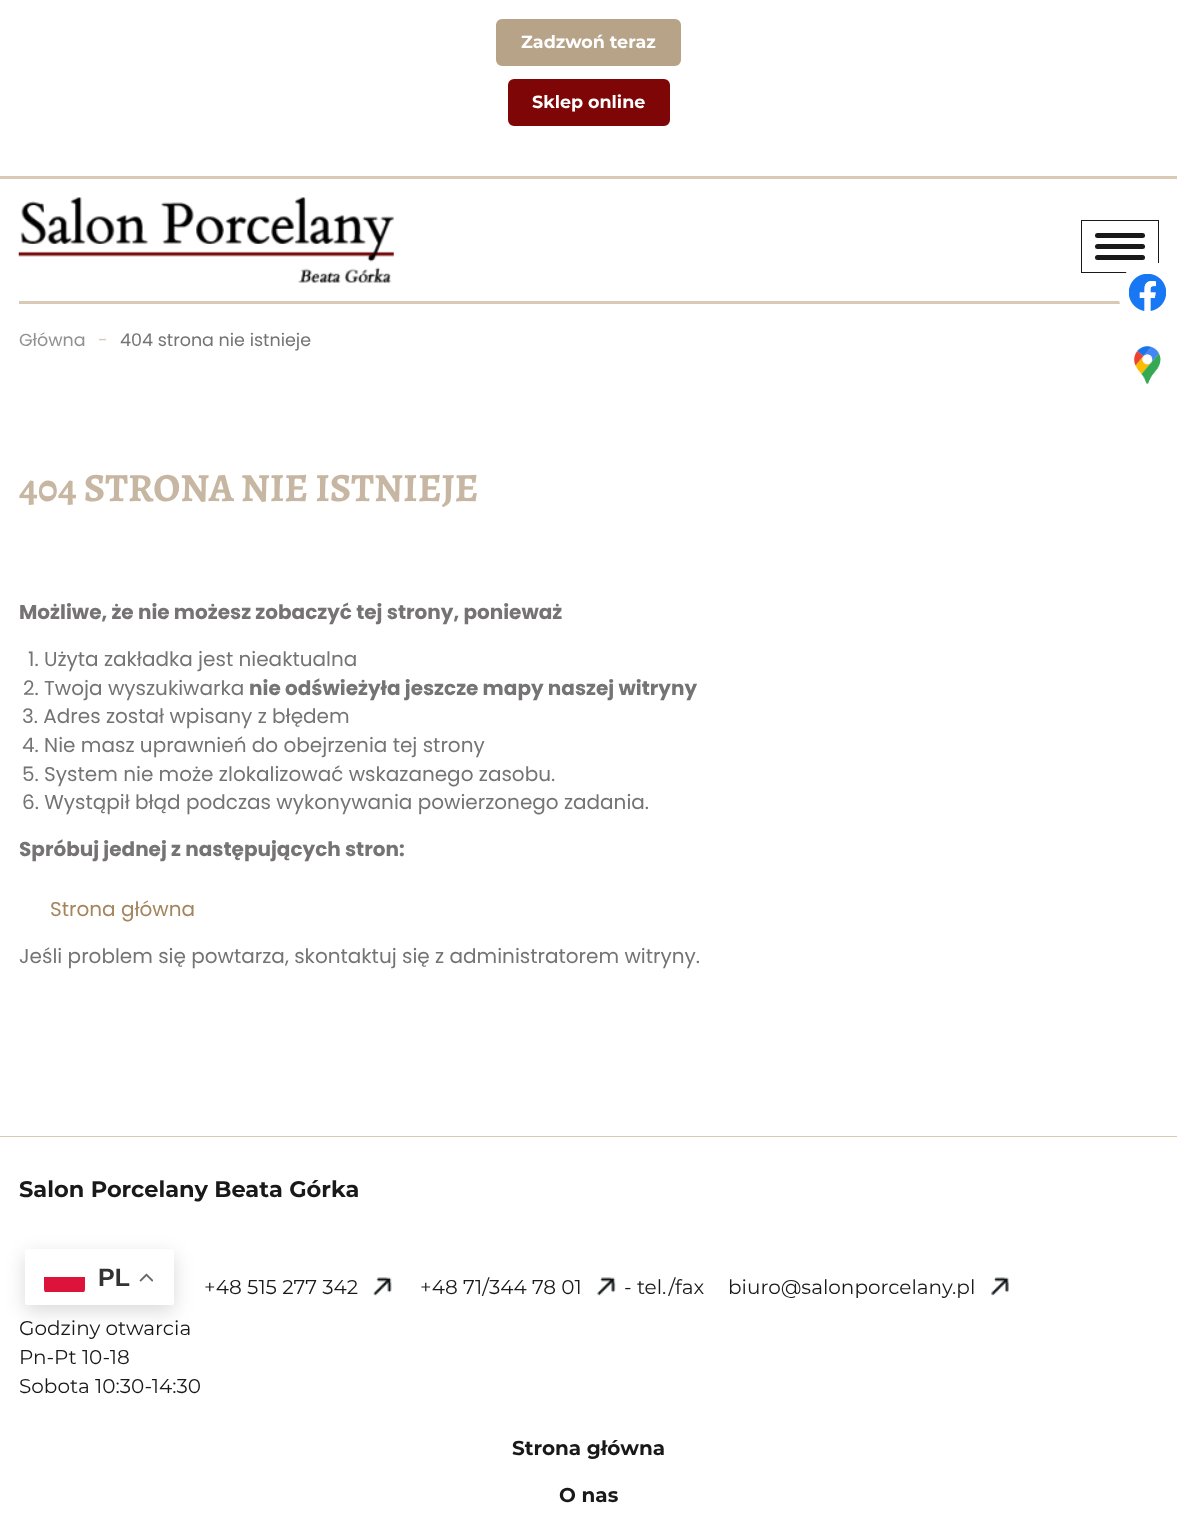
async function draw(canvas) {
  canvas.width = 1177
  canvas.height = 1513
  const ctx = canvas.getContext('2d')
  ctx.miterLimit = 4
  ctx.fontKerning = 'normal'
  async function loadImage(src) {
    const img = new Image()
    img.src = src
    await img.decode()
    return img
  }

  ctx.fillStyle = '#fff'
  ctx.fillRect(0, 0, 1177, 1513)
  ctx.fillStyle = '#b7a387'
  ctx.beginPath()
  ctx.roundRect(497.5, 20.5, 182, 44, 4.5)
  ctx.fill()
  ctx.strokeStyle = '#b7a387'
  ctx.lineWidth = 3
  ctx.stroke()
  ctx.font = 'bold 17.5px Montserrat'
  ctx.fillStyle = '#fff'
  ctx.fillText('Zadzwoń teraz', 521, 48)
  ctx.fillStyle = '#7f0606'
  ctx.beginPath()
  ctx.roundRect(509.5, 80.5, 159, 44, 4.5)
  ctx.fill()
  ctx.strokeStyle = '#7f0606'
  ctx.stroke()
  ctx.fillStyle = '#fff'
  ctx.fillText('Sklep online', 532, 108)
  ctx.fillStyle = '#d9cab8'
  ctx.fillRect(0, 176, 1177, 3)
  ctx.drawImage(await loadImage('image0.png'), 18, 197, 376, 86)
  ctx.strokeStyle = '#191919'
  ctx.lineWidth = 1
  ctx.strokeRect(1081.5, 220.5, 77, 52)
  ctx.fillStyle = '#191919'
  ctx.beginPath()
  ctx.roundRect(1095, 233, 50, 5, 2.5)
  ctx.fill()
  ctx.beginPath()
  ctx.roundRect(1095, 244, 50, 5, 2.5)
  ctx.fill()
  ctx.beginPath()
  ctx.roundRect(1095, 255, 50, 5, 2.5)
  ctx.fill()
  ctx.fillStyle = '#d9cab8'
  ctx.fillRect(19, 301, 1102, 3)
  ctx.font = '17.5px Poppins'
  ctx.fillStyle = '#919191'
  ctx.fillText('Główna', 19, 346)
  ctx.fillStyle = '#d9cab8'
  ctx.fillText('-', 98, 346)
  ctx.fillStyle = '#757373'
  ctx.fillText('404 strona nie istnieje', 120, 346)
  ctx.font = 'bold 40px Alegreya'
  ctx.fillStyle = '#c7b7a2'
  ctx.fillText('404 STRONA NIE ISTNIEJE', 19, 501)
  ctx.font = 'bold 20px Poppins'
  ctx.fillStyle = '#757373'
  ctx.fillText('Możliwe, że nie możesz zobaczyć tej strony, ponieważ', 19, 619)
  ctx.font = '20px Poppins'
  ctx.fillText('1. Użyta zakładka jest nieaktualna', 28, 666)
  ctx.fillText('2. Twoja wyszukiwarka', 23, 695)
  ctx.font = 'bold 20px Poppins'
  ctx.fillText('nie odświeżyła jeszcze mapy naszej witryny', 249, 695)
  ctx.font = '20px Poppins'
  ctx.fillText('3. Adres został wpisany z błędem', 22, 723)
  ctx.fillText('4. Nie masz uprawnień do obejrzenia tej strony', 22, 752)
  ctx.fillText('5. System nie może zlokalizować wskazanego zasobu.', 22, 781)
  ctx.fillText('6. Wystąpił błąd podczas wykonywania powierzonego zadania.', 22, 809)
  ctx.font = 'bold 20px Poppins'
  ctx.fillText('Spróbuj jednej z następujących stron:', 19, 856)
  ctx.font = '20px Poppins'
  ctx.fillStyle = '#a3865d'
  ctx.fillText('Strona główna', 50, 916)
  ctx.fillStyle = '#757373'
  ctx.fillText('Jeśli problem się powtarza, skontaktuj się z administratorem witryny.', 19, 963)
  ctx.fillStyle = '#fff'
  ctx.beginPath()
  ctx.moveTo(1148, 263)
  ctx.lineTo(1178, 263)
  ctx.lineTo(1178, 323)
  ctx.lineTo(1148, 323)
  ctx.bezierCurveTo(1131.5, 323, 1118, 309.5, 1118, 293)
  ctx.bezierCurveTo(1118, 276.5, 1131.5, 263, 1148, 263)
  ctx.closePath()
  ctx.fill()
  ctx.drawImage(await loadImage('image1.png'), 1129, 274, 37, 37)
  ctx.drawImage(await loadImage('image2.png'), 1134, 346, 27, 38)
  ctx.fillStyle = '#d9cab8'
  ctx.fillRect(0, 1136, 1177, 1)
  ctx.font = 'bold 22.5px Montserrat'
  ctx.fillStyle = '#191919'
  ctx.fillText('Salon Porcelany Beata Górka', 19, 1197)
  ctx.font = '20px Montserrat'
  ctx.fillText('+48 515 277 342', 204, 1294)
  ctx.drawImage(await loadImage('image3.png'), 373, 1277, 19, 19)
  ctx.fillText('+48 71/344 78 01', 420, 1294)
  ctx.drawImage(await loadImage('image4.png'), 597, 1277, 19, 19)
  ctx.fillText('- tel./fax', 624, 1294)
  ctx.fillText('biuro@salonporcelany.pl', 728, 1294)
  ctx.drawImage(await loadImage('image5.png'), 991, 1277, 18, 19)
  ctx.fillText('Godziny otwarcia', 19, 1335)
  ctx.fillText('Pn-Pt 10-18', 19, 1364)
  ctx.fillText('Sobota 10:30-14:30', 19, 1393)
  ctx.font = 'bold 20px Montserrat'
  ctx.fillText('Strona główna', 512, 1455)
  ctx.fillText('O nas', 559, 1502)
  ctx.fillStyle = '#00000026'
  ctx.filter = 'blur(9.5px)'
  ctx.beginPath()
  ctx.roundRect(25, 1255, 149, 56, 2.5)
  ctx.fill()
  ctx.filter = 'none'
  ctx.fillStyle = '#fff'
  ctx.beginPath()
  ctx.roundRect(25, 1249, 149, 56, 2.5)
  ctx.fill()
  ctx.save()
  ctx.beginPath()
  ctx.roundRect(44, 1261, 41, 32, 4)
  ctx.clip()
  ctx.fillStyle = '#dc143c'
  ctx.fillRect(44, 1277, 41, 15)
  ctx.restore()
  ctx.font = 'bold 25px Liberation Sans'
  ctx.fillStyle = '#333'
  ctx.fillText('PL', 98, 1286)
  ctx.drawImage(await loadImage('image6.png'), 139, 1273, 14, 9)
}

draw(document.querySelector('canvas'))
